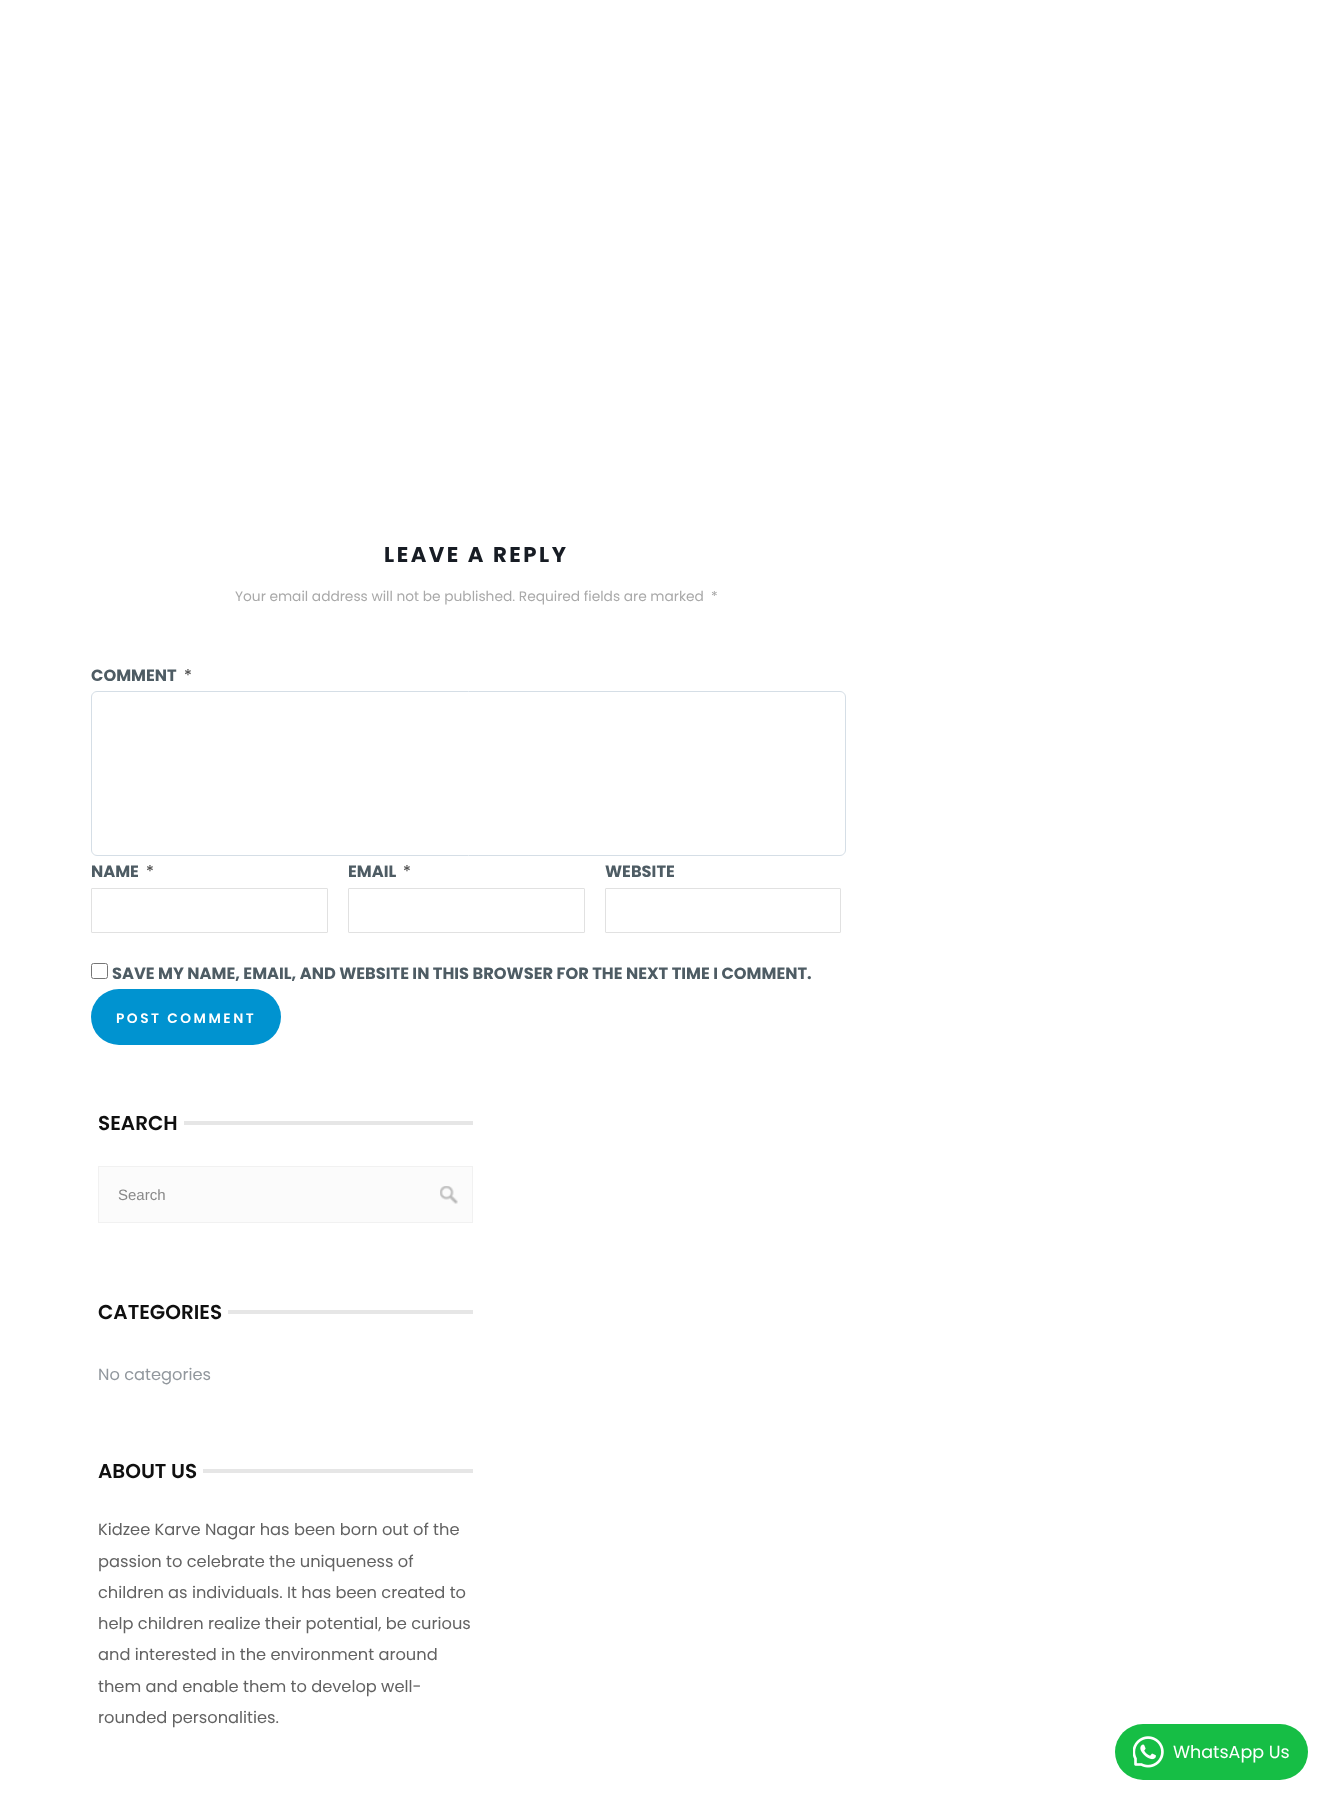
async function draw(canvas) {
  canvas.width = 1332
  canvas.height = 1805
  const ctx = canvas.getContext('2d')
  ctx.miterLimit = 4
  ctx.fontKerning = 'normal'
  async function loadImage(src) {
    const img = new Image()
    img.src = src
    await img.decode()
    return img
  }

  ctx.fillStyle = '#fff'
  ctx.fillRect(0, 0, 1332, 1805)
  ctx.letterSpacing = '2.5px'
  ctx.font = 'bold 21.25px Poppins'
  ctx.fillStyle = '#171c24'
  ctx.fillText('LEAVE A REPLY', 384, 562)
  ctx.letterSpacing = '0px'
  ctx.font = '13.75px Poppins'
  ctx.fillStyle = '#a9a9a9'
  ctx.fillText('Your email address will not be published. Required fields are marked', 235, 601)
  ctx.fillText('*', 711, 601)
  ctx.font = 'bold 16.25px Poppins'
  ctx.fillStyle = '#4e5c64'
  ctx.fillText('COMMENT', 91, 681)
  ctx.font = '16.25px Poppins'
  ctx.fillStyle = '#444'
  ctx.fillText('*', 184, 681)
  ctx.beginPath()
  ctx.roundRect(91.5, 691.5, 754, 164, 5.5)
  ctx.strokeStyle = '#d5dee6'
  ctx.stroke()
  ctx.font = 'bold 16.25px Poppins'
  ctx.fillStyle = '#4e5c64'
  ctx.fillText('NAME', 91, 877)
  ctx.font = '16.25px Poppins'
  ctx.fillStyle = '#444'
  ctx.fillText('*', 146, 877)
  ctx.beginPath()
  ctx.roundRect(91.5, 888.5, 236, 44, 0.5)
  ctx.strokeStyle = '#e1e1e1'
  ctx.stroke()
  ctx.font = 'bold 16.25px Poppins'
  ctx.fillStyle = '#4e5c64'
  ctx.fillText('EMAIL', 348, 877)
  ctx.font = '16.25px Poppins'
  ctx.fillStyle = '#444'
  ctx.fillText('*', 403, 877)
  ctx.beginPath()
  ctx.roundRect(348.5, 888.5, 236, 44, 0.5)
  ctx.stroke()
  ctx.font = 'bold 16.25px Poppins'
  ctx.fillStyle = '#4e5c64'
  ctx.fillText('WEBSITE', 605, 877)
  ctx.beginPath()
  ctx.roundRect(605.5, 888.5, 235, 44, 0.5)
  ctx.stroke()
  ctx.beginPath()
  ctx.roundRect(91.5, 963.5, 16, 15, 2)
  ctx.strokeStyle = '#767676'
  ctx.stroke()
  ctx.fillText('SAVE MY NAME, EMAIL, AND WEBSITE IN THIS BROWSER FOR THE NEXT TIME I COMMENT.', 112, 979)
  ctx.fillStyle = '#0093d0'
  ctx.beginPath()
  ctx.roundRect(91, 989, 190, 56, 28)
  ctx.fill()
  ctx.letterSpacing = '2.5px'
  ctx.font = '600 13.75px Poppins'
  ctx.fillStyle = '#fff'
  ctx.fillText('POST COMMENT', 116, 1023)
  ctx.letterSpacing = '0px'
  ctx.font = '600 20px Poppins'
  ctx.fillStyle = '#101010'
  ctx.fillText('SEARCH', 98, 1130)
  ctx.fillStyle = '#e6e6e6'
  ctx.fillRect(184, 1121, 289, 4)
  ctx.fillStyle = '#fbfbfb'
  ctx.fillRect(99, 1167, 373, 55)
  ctx.drawImage(await loadImage('image0.png'), 440, 1186, 18, 18)
  ctx.strokeStyle = '#f1f1f1'
  ctx.strokeRect(98.5, 1166.5, 374, 56)
  ctx.font = '15px Liberation Sans'
  ctx.fillStyle = '#888'
  ctx.fillText('Search', 118, 1200)
  ctx.font = '600 20px Poppins'
  ctx.fillStyle = '#101010'
  ctx.fillText('CATEGORIES', 98, 1319)
  ctx.fillStyle = '#e6e6e6'
  ctx.fillRect(228, 1310, 245, 4)
  ctx.font = '16.25px Poppins'
  ctx.fillStyle = '#91979d'
  ctx.fillText('No categories', 98, 1380)
  ctx.font = '600 20px Poppins'
  ctx.fillStyle = '#101010'
  ctx.fillText('ABOUT US', 98, 1478)
  ctx.fillStyle = '#e6e6e6'
  ctx.fillRect(203, 1469, 270, 4)
  ctx.font = '16.25px Poppins'
  ctx.fillStyle = '#626262'
  ctx.fillText('Kidzee Karve Nagar has been born out of the', 98, 1535)
  ctx.fillText('passion to celebrate the uniqueness of', 98, 1567)
  ctx.fillText('children as individuals. It has been created to', 98, 1598)
  ctx.fillText('help children realize their potential, be curious', 98, 1629)
  ctx.fillText('and interested in the environment around', 98, 1660)
  ctx.fillText('them and enable them to develop well-', 98, 1692)
  ctx.fillText('rounded personalities.', 98, 1723)
  ctx.fillStyle = '#16be45'
  ctx.beginPath()
  ctx.roundRect(1115, 1724, 193, 56, 28)
  ctx.fill()
  ctx.drawImage(await loadImage('image1.png'), 1133, 1736, 31, 32)
  ctx.font = '17.5px Poppins'
  ctx.fillStyle = '#fff'
  ctx.fillText('WhatsApp Us', 1173, 1758)
}

draw(document.querySelector('canvas'))
